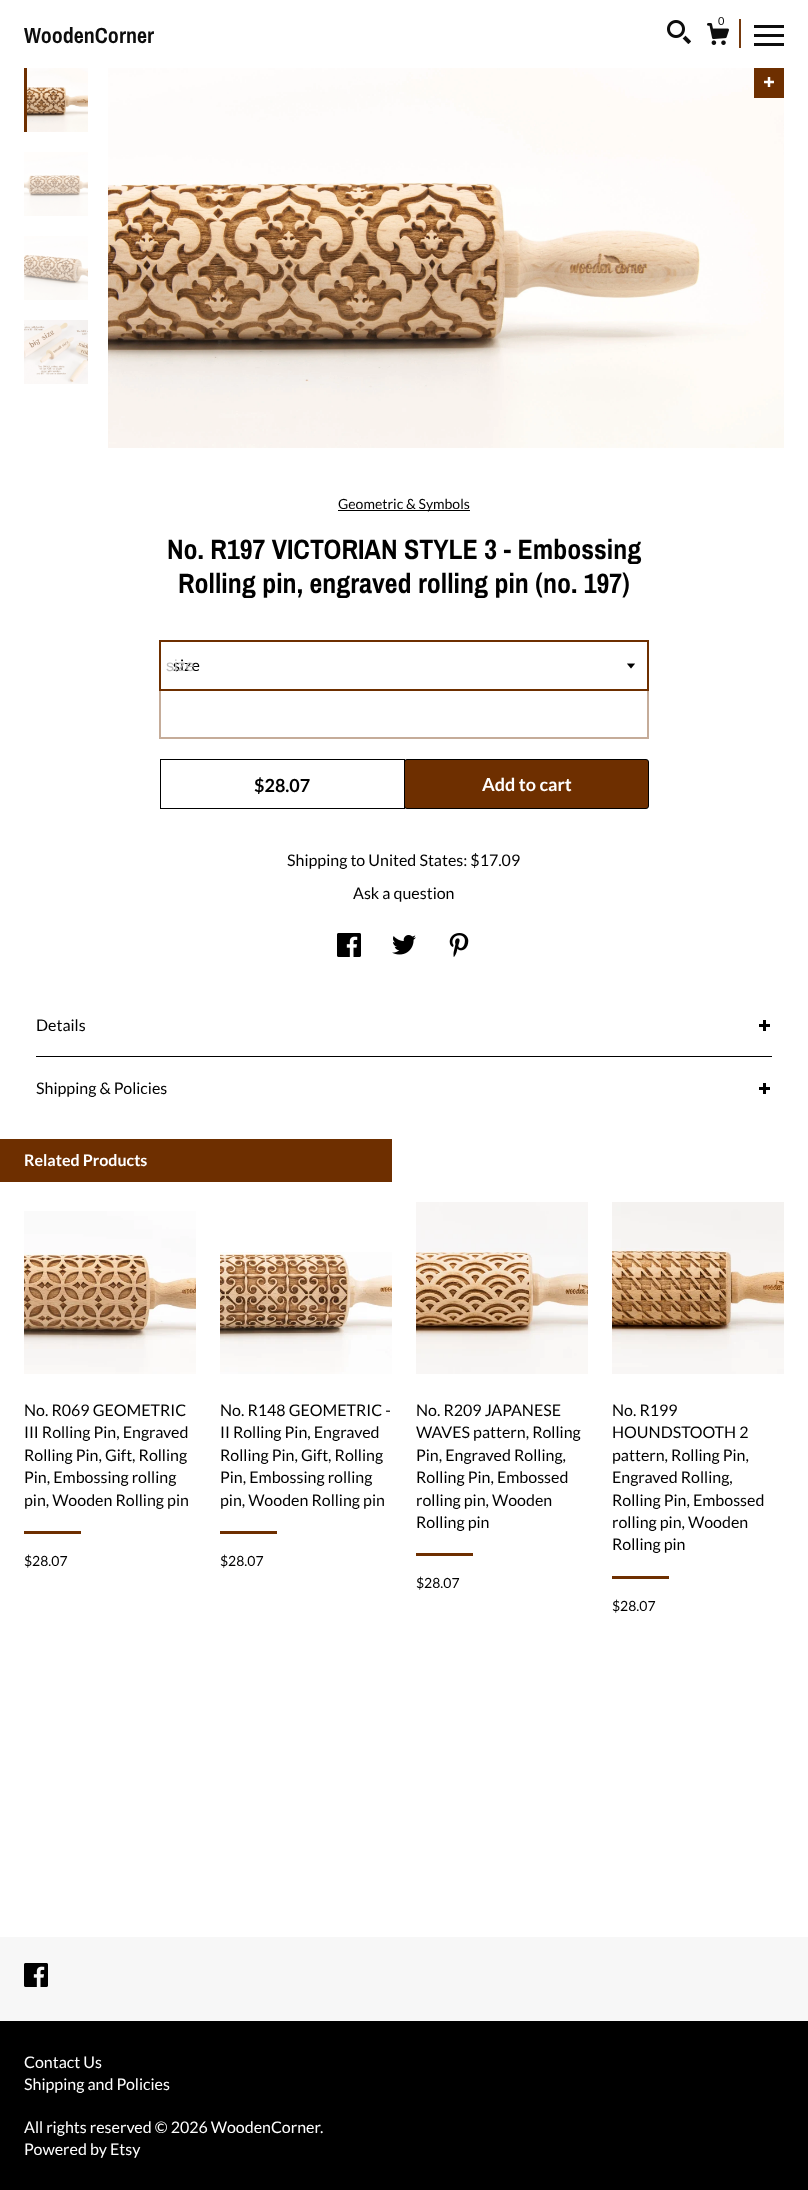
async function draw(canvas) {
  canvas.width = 808
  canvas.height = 2190
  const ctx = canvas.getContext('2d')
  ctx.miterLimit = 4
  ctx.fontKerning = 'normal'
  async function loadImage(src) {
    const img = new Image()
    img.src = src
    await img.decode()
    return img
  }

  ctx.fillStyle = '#fff'
  ctx.fillRect(0, 0, 808, 2190)
  ctx.drawImage(await loadImage('image0.png'), 667, 20, 24, 24)
  ctx.drawImage(await loadImage('image1.png'), 707, 23, 22, 22)
  ctx.font = '11px Lato'
  ctx.fillStyle = '#0d0d0d'
  ctx.fillText('0', 718, 25)
  ctx.fillStyle = '#75390d'
  ctx.fillRect(739, 19, 2, 29)
  ctx.fillStyle = '#0d0d0d'
  ctx.fillRect(754, 25, 30, 3)
  ctx.fillRect(754, 34, 30, 3)
  ctx.fillRect(754, 43, 30, 3)
  ctx.font = 'bold 22px Archivo Narrow'
  ctx.fillText('WoodenCorner', 24, 43)
  ctx.drawImage(await loadImage('image2.png'), 27, 68, 61, 64)
  ctx.fillStyle = '#6e2f00'
  ctx.fillRect(24, 68, 3, 64)
  ctx.drawImage(await loadImage('image3.png'), 24, 152, 64, 64)
  ctx.drawImage(await loadImage('image4.png'), 24, 236, 64, 64)
  ctx.drawImage(await loadImage('image5.png'), 24, 320, 64, 64)
  ctx.drawImage(await loadImage('image6.png'), 108, 68, 676, 380)
  ctx.fillRect(754, 68, 30, 30)
  ctx.drawImage(await loadImage('image7.png'), 764, 77, 10, 10)
  ctx.fillStyle = '#000'
  ctx.fillRect(338, 510, 132, 1)
  ctx.font = '14px Lato'
  ctx.fillText('Geometric & Symbols', 338, 509)
  ctx.font = 'bold 28px Archivo Narrow'
  ctx.fillText('No. R197 VICTORIAN STYLE 3 - Embossing', 167, 559)
  ctx.fillText('Rolling pin, engraved rolling pin (no. 197)', 178, 593)
  ctx.strokeStyle = '#6e2f00'
  ctx.lineWidth = 2
  ctx.strokeRect(160, 641, 488, 49)
  ctx.font = '16px Lato'
  ctx.fillText('size', 173, 671)
  ctx.font = '16px Liberation Sans'
  ctx.fillStyle = '#bdbdbd'
  ctx.fillText('size', 166, 671)
  ctx.drawImage(await loadImage('image8.png'), 627, 663, 8, 6)
  ctx.strokeStyle = '#6e2f0066'
  ctx.strokeRect(160, 690, 488, 48)
  ctx.fillStyle = '#6e2f00'
  ctx.beginPath()
  ctx.roundRect(404.5, 759.5, 244, 49, 2.5)
  ctx.fill()
  ctx.strokeStyle = '#000'
  ctx.lineWidth = 1
  ctx.stroke()
  ctx.font = 'bold 18px Lato'
  ctx.fillStyle = '#fff'
  ctx.fillText('Add to cart', 482, 791)
  ctx.strokeRect(160.5, 759.5, 244, 49)
  ctx.fillStyle = '#000'
  ctx.fillText('$28.07', 254, 792)
  ctx.font = '16px Lato'
  ctx.fillText('Shipping to United States: $17.09', 287, 866)
  ctx.fillText('Ask a question', 353, 899)
  ctx.drawImage(await loadImage('image9.png'), 337, 933, 24, 24)
  ctx.drawImage(await loadImage('image10.png'), 392, 935, 24, 20)
  ctx.drawImage(await loadImage('image11.png'), 449, 933, 20, 24)
  ctx.fillRect(36, 1056, 736, 1)
  ctx.fillText('Details', 36, 1031)
  ctx.fillRect(759, 1024, 11, 3)
  ctx.fillRect(763, 1020, 3, 11)
  ctx.fillText('Shipping & Policies', 36, 1094)
  ctx.fillRect(759, 1087, 11, 3)
  ctx.fillRect(763, 1083, 3, 11)
  ctx.fillStyle = '#6e2f00'
  ctx.fillRect(0, 1139, 392, 43)
  ctx.font = 'bold 16px Lato'
  ctx.fillStyle = '#fff'
  ctx.fillText('Related Products', 24, 1166)
  ctx.drawImage(await loadImage('image12.png'), 24, 1211, 172, 163)
  ctx.font = '16px Lato'
  ctx.fillStyle = '#000'
  ctx.fillText('No. R069 GEOMETRIC', 24, 1416)
  ctx.fillText('III Rolling Pin, Engraved', 24, 1438)
  ctx.fillText('Rolling Pin, Gift, Rolling', 24, 1461)
  ctx.fillText('Pin, Embossing rolling', 24, 1483)
  ctx.fillText('pin, Wooden Rolling pin', 24, 1506)
  ctx.fillStyle = '#6e2f00'
  ctx.fillRect(24, 1531, 57, 3)
  ctx.font = '14px Lato'
  ctx.fillStyle = '#000'
  ctx.fillText('$28.07', 24, 1566)
  ctx.drawImage(await loadImage('image13.png'), 220, 1252, 172, 122)
  ctx.font = '16px Lato'
  ctx.fillText('No. R148 GEOMETRIC -', 220, 1416)
  ctx.fillText('II Rolling Pin, Engraved', 220, 1438)
  ctx.fillText('Rolling Pin, Gift, Rolling', 220, 1461)
  ctx.fillText('Pin, Embossing rolling', 220, 1483)
  ctx.fillText('pin, Wooden Rolling pin', 220, 1506)
  ctx.fillStyle = '#6e2f00'
  ctx.fillRect(220, 1531, 57, 3)
  ctx.font = '14px Lato'
  ctx.fillStyle = '#000'
  ctx.fillText('$28.07', 220, 1566)
  ctx.drawImage(await loadImage('image14.png'), 416, 1202, 172, 172)
  ctx.font = '16px Lato'
  ctx.fillText('No. R209 JAPANESE', 416, 1416)
  ctx.fillText('WAVES pattern, Rolling', 416, 1438)
  ctx.fillText('Pin, Engraved Rolling,', 416, 1461)
  ctx.fillText('Rolling Pin, Embossed', 416, 1483)
  ctx.fillText('rolling pin, Wooden', 416, 1506)
  ctx.fillText('Rolling pin', 416, 1528)
  ctx.fillStyle = '#6e2f00'
  ctx.fillRect(416, 1553, 57, 3)
  ctx.font = '14px Lato'
  ctx.fillStyle = '#000'
  ctx.fillText('$28.07', 416, 1588)
  ctx.drawImage(await loadImage('image15.png'), 612, 1202, 172, 172)
  ctx.font = '16px Lato'
  ctx.fillText('No. R199', 612, 1416)
  ctx.fillText('HOUNDSTOOTH 2', 612, 1438)
  ctx.fillText('pattern, Rolling Pin,', 612, 1461)
  ctx.fillText('Engraved Rolling,', 612, 1483)
  ctx.fillText('Rolling Pin, Embossed', 612, 1506)
  ctx.fillText('rolling pin, Wooden', 612, 1528)
  ctx.fillText('Rolling pin', 612, 1550)
  ctx.fillStyle = '#6e2f00'
  ctx.fillRect(612, 1576, 57, 3)
  ctx.font = '14px Lato'
  ctx.fillStyle = '#000'
  ctx.fillText('$28.07', 612, 1611)
  ctx.fillStyle = '#f7f7f7'
  ctx.fillRect(0, 1937, 808, 84)
  ctx.drawImage(await loadImage('image16.png'), 24, 1963, 24, 24)
  ctx.fillStyle = '#000'
  ctx.fillRect(0, 2021, 808, 169)
  ctx.font = '16px Lato'
  ctx.fillStyle = '#fff'
  ctx.fillText('Contact Us', 24, 2068)
  ctx.fillText('Shipping and Policies', 24, 2090)
  ctx.fillText('All rights reserved © 2026 WoodenCorner.', 24, 2133)
  ctx.fillText('Powered by Etsy', 24, 2155)
}

draw(document.querySelector('canvas'))
